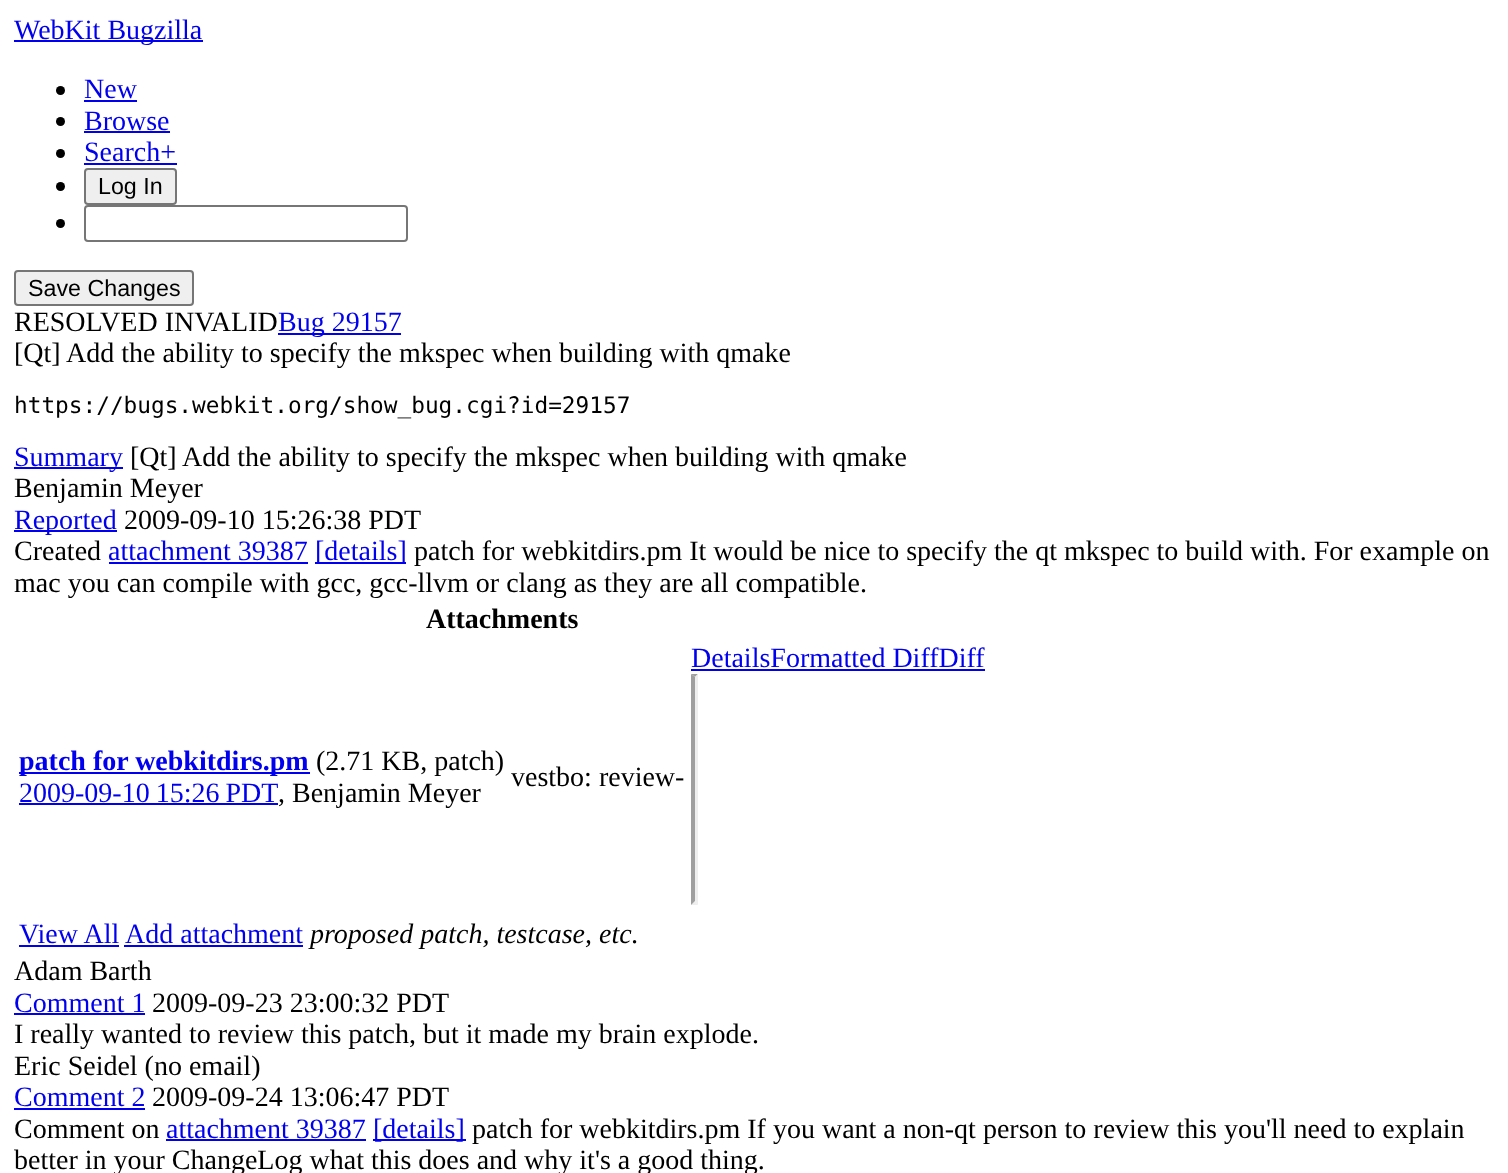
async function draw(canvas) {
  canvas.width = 1508
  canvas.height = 1173
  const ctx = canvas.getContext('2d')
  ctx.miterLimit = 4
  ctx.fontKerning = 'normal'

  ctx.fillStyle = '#fff'
  ctx.fillRect(0, 0, 1508, 1173)
  ctx.fillStyle = '#00e'
  ctx.fillRect(14, 40, 189, 2)
  ctx.font = '28px Liberation Serif'
  ctx.fillText('WebKit Bugzilla', 14, 39)
  ctx.fillStyle = '#000'
  ctx.beginPath()
  ctx.arc(60.5, 90.5, 4.5, 0, 2 * Math.PI)
  ctx.fill()
  ctx.fillStyle = '#00e'
  ctx.fillText('New', 84, 98)
  ctx.fillRect(84, 100, 53, 2)
  ctx.fillStyle = '#000'
  ctx.beginPath()
  ctx.arc(60.5, 121.5, 4.5, 0, 2 * Math.PI)
  ctx.fill()
  ctx.fillStyle = '#00e'
  ctx.fillText('Browse', 84, 130)
  ctx.fillRect(84, 131, 86, 2)
  ctx.fillStyle = '#000'
  ctx.beginPath()
  ctx.arc(60.5, 153.5, 4.5, 0, 2 * Math.PI)
  ctx.fill()
  ctx.fillStyle = '#00e'
  ctx.fillText('Search+', 84, 161)
  ctx.fillRect(84, 163, 93, 2)
  ctx.fillStyle = '#000'
  ctx.beginPath()
  ctx.arc(60.5, 186.5, 4.5, 0, 2 * Math.PI)
  ctx.fill()
  ctx.fillStyle = '#efefef'
  ctx.beginPath()
  ctx.roundRect(85, 169, 91, 35, 3)
  ctx.fill()
  ctx.strokeStyle = '#767676'
  ctx.lineWidth = 2
  ctx.stroke()
  ctx.font = '23.25px Liberation Sans'
  ctx.fillStyle = '#000'
  ctx.fillText('Log In', 98, 194)
  ctx.beginPath()
  ctx.arc(60.5, 223.5, 4.5, 0, 2 * Math.PI)
  ctx.fill()
  ctx.beginPath()
  ctx.roundRect(85, 206, 322, 35, 3)
  ctx.stroke()
  ctx.fillStyle = '#efefef'
  ctx.beginPath()
  ctx.roundRect(15, 271, 178, 34, 3)
  ctx.fill()
  ctx.stroke()
  ctx.fillStyle = '#000'
  ctx.fillText('Save Changes', 28, 296)
  ctx.font = '28px Liberation Serif'
  ctx.fillText('RESOLVED INVALID', 14, 331)
  ctx.fillStyle = '#00e'
  ctx.fillRect(278, 333, 123, 2)
  ctx.fillText('Bug 29157', 278, 331)
  ctx.fillStyle = '#000'
  ctx.fillText('[Qt] Add the ability to specify the mkspec when building with qmake', 14, 362)
  ctx.font = '22.75px DejaVu Sans Mono'
  ctx.fillText('https://bugs.webkit.org/show_bug.cgi?id=29157', 14, 413)
  ctx.fillStyle = '#00e'
  ctx.fillRect(14, 467, 109, 2)
  ctx.font = '28px Liberation Serif'
  ctx.fillText('Summary', 14, 466)
  ctx.fillStyle = '#000'
  ctx.fillText('[Qt] Add the ability to specify the mkspec when building with qmake', 130, 466)
  ctx.fillText('Benjamin Meyer', 14, 497)
  ctx.fillStyle = '#00e'
  ctx.fillRect(14, 530, 103, 2)
  ctx.fillText('Reported', 14, 529)
  ctx.fillStyle = '#000'
  ctx.fillText('2009-09-10 15:26:38 PDT', 124, 529)
  ctx.fillText('Created', 14, 560)
  ctx.fillStyle = '#00e'
  ctx.fillText('attachment 39387', 108, 560)
  ctx.fillRect(109, 562, 199, 2)
  ctx.fillRect(315, 562, 91, 2)
  ctx.fillText('[details]', 315, 560)
  ctx.fillStyle = '#000'
  ctx.fillText('patch for webkitdirs.pm It would be nice to specify the qt mkspec to build with. For example on', 414, 560)
  ctx.fillText('mac you can compile with gcc, gcc-llvm or clang as they are all compatible.', 14, 592)
  ctx.font = 'bold 28px Liberation Serif'
  ctx.fillText('Attachments', 426, 628)
  ctx.font = '28px Liberation Serif'
  ctx.fillStyle = '#00e'
  ctx.fillText('DetailsFormatted DiffDiff', 691, 667)
  ctx.fillRect(691, 669, 294, 2)
  ctx.fillStyle = '#9f9f9f'
  ctx.beginPath()
  ctx.moveTo(691, 674)
  ctx.lineTo(698, 674)
  ctx.lineTo(695, 677)
  ctx.closePath()
  ctx.fill()
  ctx.fillStyle = '#eee'
  ctx.beginPath()
  ctx.moveTo(698, 674)
  ctx.lineTo(698, 905)
  ctx.lineTo(695, 901)
  ctx.lineTo(695, 677)
  ctx.closePath()
  ctx.fill()
  ctx.beginPath()
  ctx.moveTo(698, 905)
  ctx.lineTo(691, 905)
  ctx.lineTo(695, 901)
  ctx.closePath()
  ctx.fill()
  ctx.fillStyle = '#9f9f9f'
  ctx.beginPath()
  ctx.moveTo(691, 905)
  ctx.lineTo(691, 674)
  ctx.lineTo(695, 677)
  ctx.lineTo(695, 901)
  ctx.closePath()
  ctx.fill()
  ctx.fillStyle = '#00e'
  ctx.fillRect(19, 772, 291, 2)
  ctx.font = 'bold 28px Liberation Serif'
  ctx.fillText('patch for webkitdirs.pm', 19, 770)
  ctx.font = '28px Liberation Serif'
  ctx.fillStyle = '#000'
  ctx.fillText('(2.71 KB, patch)', 316, 770)
  ctx.wordSpacing = '-1px'
  ctx.fillStyle = '#00e'
  ctx.fillText('2009-09-10 15:26 PDT', 19, 802)
  ctx.wordSpacing = '0px'
  ctx.fillStyle = '#000'
  ctx.fillText(', Benjamin Meyer', 278, 802)
  ctx.fillStyle = '#00e'
  ctx.fillRect(19, 803, 259, 2)
  ctx.fillStyle = '#000'
  ctx.fillText('vestbo: review-', 511, 786)
  ctx.fillStyle = '#00e'
  ctx.fillText('View All', 19, 943)
  ctx.fillRect(19, 945, 100, 2)
  ctx.fillText('Add attachment', 125, 943)
  ctx.fillRect(124, 945, 179, 2)
  ctx.font = 'italic 28px Liberation Serif'
  ctx.fillStyle = '#000'
  ctx.fillText('proposed patch, testcase, etc.', 310, 943)
  ctx.font = '28px Liberation Serif'
  ctx.fillText('Adam Barth', 14, 980)
  ctx.fillStyle = '#00e'
  ctx.fillText('Comment 1', 14, 1012)
  ctx.fillRect(14, 1013, 131, 2)
  ctx.fillStyle = '#000'
  ctx.fillText('2009-09-23 23:00:32 PDT', 152, 1012)
  ctx.fillText('I really wanted to review this patch, but it made my brain explode.', 14, 1043)
  ctx.fillText('Eric Seidel (no email)', 14, 1075)
  ctx.fillStyle = '#00e'
  ctx.fillText('Comment 2', 14, 1106)
  ctx.fillRect(14, 1108, 131, 2)
  ctx.fillStyle = '#000'
  ctx.fillText('2009-09-24 13:06:47 PDT', 152, 1106)
  ctx.fillText('Comment on', 14, 1138)
  ctx.fillStyle = '#00e'
  ctx.fillText('attachment 39387', 166, 1138)
  ctx.fillRect(166, 1139, 200, 2)
  ctx.fillRect(373, 1139, 93, 2)
  ctx.fillText('[details]', 373, 1138)
  ctx.fillStyle = '#000'
  ctx.fillText('patch for webkitdirs.pm If you want a non-qt person to review this you\'ll need to explain', 472, 1138)
  ctx.fillText('better in your ChangeLog what this does and why it\'s a good thing.', 14, 1169)
}

draw(document.querySelector('canvas'))
